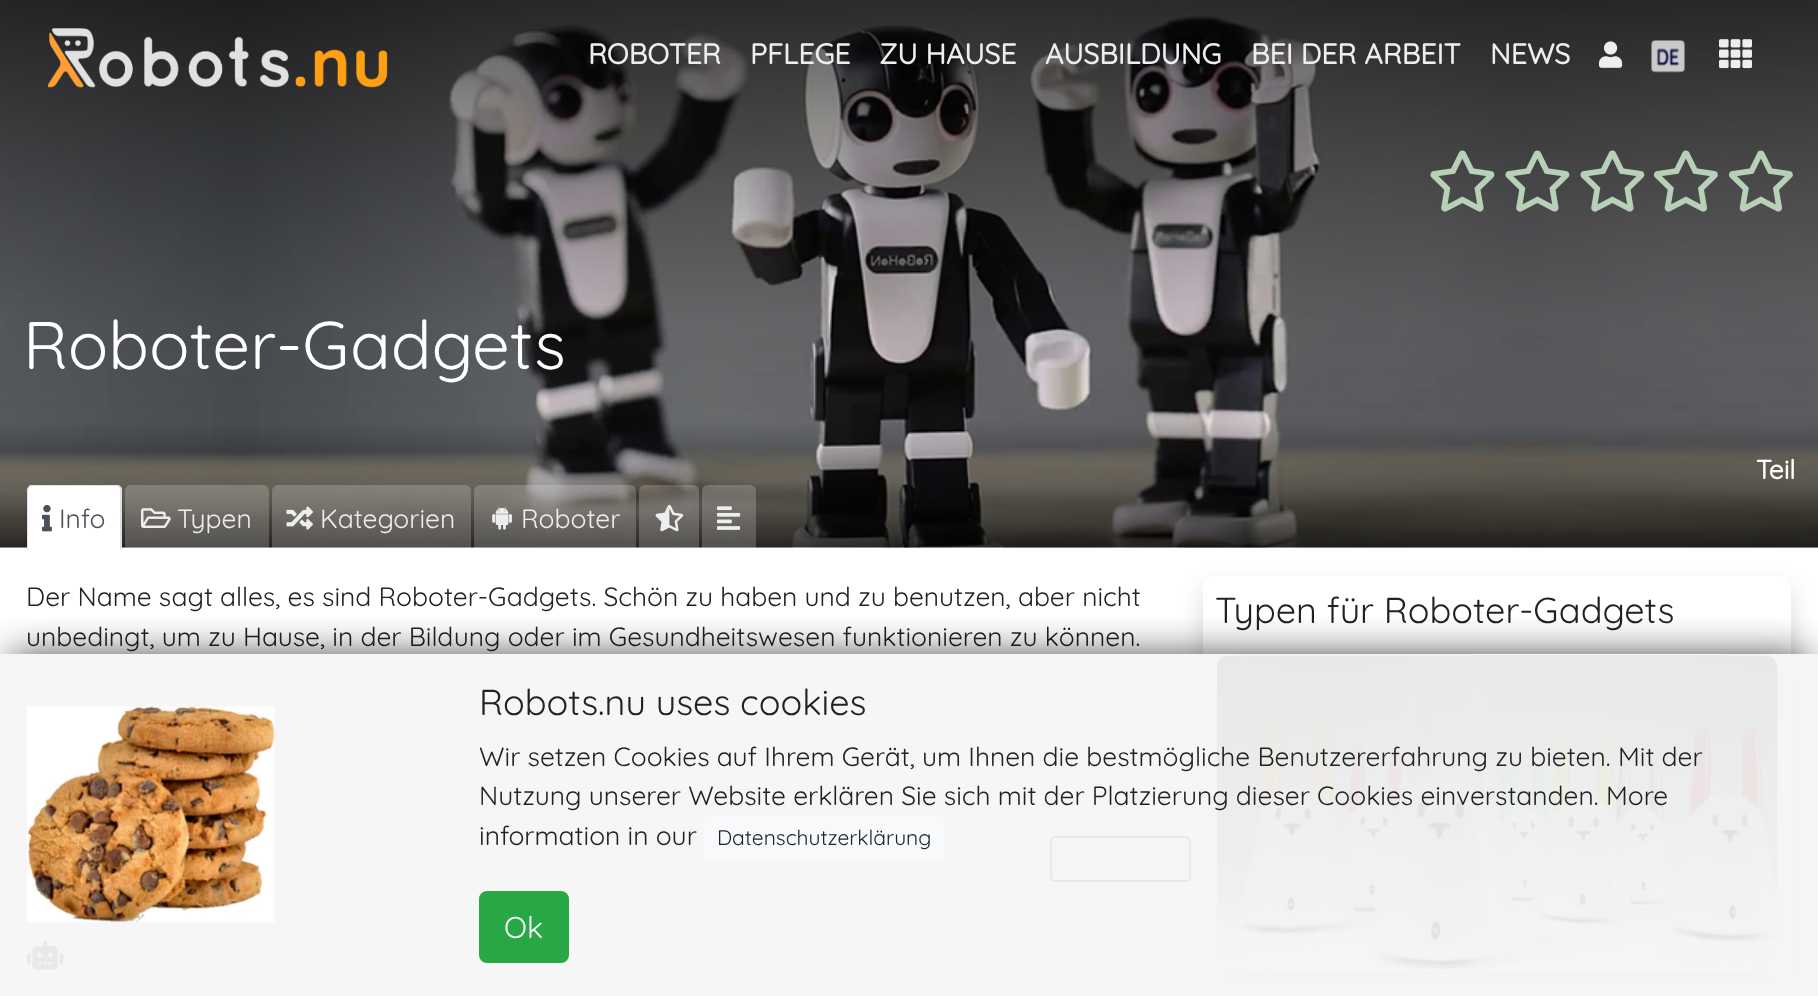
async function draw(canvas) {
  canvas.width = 1818
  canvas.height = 996
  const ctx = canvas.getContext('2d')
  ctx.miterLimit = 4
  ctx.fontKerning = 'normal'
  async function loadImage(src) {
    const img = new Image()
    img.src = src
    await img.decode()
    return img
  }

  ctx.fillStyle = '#fff'
  ctx.fillRect(0, 0, 1818, 996)
  ctx.drawImage(await loadImage('image4.png'), 0, 0, 1818, 548)
  ctx.drawImage(await loadImage('image0.png'), 47, 28, 341, 60)
  ctx.font = 'bold 28.5px Quicksand'
  ctx.fillStyle = '#eee'
  ctx.fillText('ROBOTER', 588, 64)
  ctx.fillText('PFLEGE', 750, 64)
  ctx.fillText('ZU HAUSE', 879, 64)
  ctx.fillText('AUSBILDUNG', 1045, 64)
  ctx.fillText('BEI DER ARBEIT', 1251, 64)
  ctx.fillText('NEWS', 1490, 64)
  ctx.drawImage(await loadImage('image1.png'), 1599, 41, 24, 27)
  ctx.drawImage(await loadImage('image2.png'), 1651, 40, 34, 33)
  ctx.drawImage(await loadImage('image3.png'), 1719, 39, 33, 30)
  ctx.drawImage(await loadImage('image5.png'), 1430, 150, 65, 62)
  ctx.drawImage(await loadImage('image6.png'), 1505, 150, 65, 62)
  ctx.drawImage(await loadImage('image7.png'), 1580, 150, 65, 62)
  ctx.drawImage(await loadImage('image8.png'), 1653, 150, 65, 62)
  ctx.drawImage(await loadImage('image9.png'), 1728, 150, 65, 62)
  ctx.font = '300 67.25px Quicksand'
  ctx.fillStyle = '#fff'
  ctx.fillText('Roboter-Gadgets', 23, 369)
  ctx.font = 'bold 26.4px Quicksand'
  ctx.fillText('Teil', 1756, 479)
  ctx.beginPath()
  ctx.roundRect(27, 485, 95, 66, [6, 6, 0, 0])
  ctx.fill()
  ctx.save()
  ctx.beginPath()
  ctx.rect(27, 485, 1764, 66)
  ctx.clip()
  ctx.fillStyle = '#dee2e6'
  ctx.beginPath()
  ctx.moveTo(33, 486)
  ctx.lineTo(30, 487)
  ctx.lineTo(29, 486)
  ctx.lineTo(31, 484)
  ctx.lineTo(118, 484)
  ctx.lineTo(120, 486)
  ctx.lineTo(119, 487)
  ctx.lineTo(116, 486)
  ctx.closePath()
  ctx.fill()
  ctx.restore()
  ctx.fillStyle = '#dee2e6'
  ctx.beginPath()
  ctx.moveTo(122, 550)
  ctx.lineTo(120, 549)
  ctx.lineTo(120, 490)
  ctx.lineTo(119, 487)
  ctx.lineTo(120, 486)
  ctx.lineTo(122, 488)
  ctx.closePath()
  ctx.fill()
  ctx.fillStyle = '#fff'
  ctx.beginPath()
  ctx.moveTo(121, 550)
  ctx.lineTo(28, 550)
  ctx.lineTo(28, 549)
  ctx.lineTo(120, 549)
  ctx.closePath()
  ctx.fill()
  ctx.fillStyle = '#dee2e6'
  ctx.beginPath()
  ctx.moveTo(27, 490)
  ctx.lineTo(27, 550)
  ctx.lineTo(28, 550)
  ctx.lineTo(28, 549)
  ctx.lineTo(28, 490)
  ctx.lineTo(30, 487)
  ctx.lineTo(29, 486)
  ctx.bezierCurveTo(28, 487, 27, 489, 27, 490)
  ctx.closePath()
  ctx.fill()
  ctx.drawImage(await loadImage('image10.png'), 42, 504, 10, 28)
  ctx.font = '300 26.4px Quicksand'
  ctx.fillStyle = '#495057'
  ctx.fillText('Info', 59, 528)
  ctx.fillStyle = '#ffffff33'
  ctx.beginPath()
  ctx.roundRect(125, 485, 144, 66, [6, 6, 0, 0])
  ctx.fill()
  ctx.drawImage(await loadImage('image11.png'), 141, 508, 30, 20)
  ctx.fillStyle = '#eee'
  ctx.fillText('Typen', 177, 528)
  ctx.fillStyle = '#ffffff33'
  ctx.beginPath()
  ctx.roundRect(272, 485, 199, 66, [6, 6, 0, 0])
  ctx.fill()
  ctx.drawImage(await loadImage('image12.png'), 286, 506, 27, 24)
  ctx.fillStyle = '#eee'
  ctx.fillText('Kategorien', 320, 528)
  ctx.fillStyle = '#ffffff33'
  ctx.beginPath()
  ctx.roundRect(474, 485, 162, 66, [6, 6, 0, 0])
  ctx.fill()
  ctx.drawImage(await loadImage('image13.png'), 492, 506, 20, 24)
  ctx.fillStyle = '#eee'
  ctx.fillText('Roboter', 521, 528)
  ctx.fillStyle = '#ffffff33'
  ctx.beginPath()
  ctx.roundRect(639, 485, 60, 66, [6, 6, 0, 0])
  ctx.fill()
  ctx.drawImage(await loadImage('image14.png'), 655, 504, 29, 28)
  ctx.beginPath()
  ctx.roundRect(702, 485, 54, 66, [6, 6, 0, 0])
  ctx.fill()
  ctx.drawImage(await loadImage('image15.png'), 717, 506, 24, 24)
  ctx.fillStyle = '#222'
  ctx.fillText('Der Name sagt alles, es sind Roboter-Gadgets. Schön zu haben und zu benutzen, aber nicht', 26, 606)
  ctx.fillText('unbedingt, um zu Hause, in der Bildung oder im Gesundheitswesen funktionieren zu können.', 26, 646)
  ctx.beginPath()
  ctx.roundRect(1051, 837, 139, 44, 4)
  ctx.strokeStyle = '#28a745'
  ctx.lineWidth = 2
  ctx.stroke()
  ctx.drawImage(await loadImage('image16.png'), 27, 940, 37, 30)
  ctx.save()
  ctx.beginPath()
  ctx.moveTo(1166, 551)
  ctx.lineTo(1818, 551)
  ctx.lineTo(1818, 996)
  ctx.lineTo(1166, 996)
  ctx.closePath()
  ctx.moveTo(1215, 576)
  ctx.lineTo(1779, 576)
  ctx.bezierCurveTo(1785.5, 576, 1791, 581.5, 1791, 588)
  ctx.lineTo(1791, 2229)
  ctx.bezierCurveTo(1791, 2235.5, 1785.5, 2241, 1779, 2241)
  ctx.lineTo(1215, 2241)
  ctx.bezierCurveTo(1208.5, 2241, 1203, 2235.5, 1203, 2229)
  ctx.lineTo(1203, 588)
  ctx.bezierCurveTo(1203, 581.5, 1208.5, 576, 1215, 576)
  ctx.closePath()
  ctx.clip('evenodd')
  ctx.fillStyle = '#00000026'
  ctx.filter = 'blur(12px)'
  ctx.beginPath()
  ctx.roundRect(1203, 588, 588, 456, 12)
  ctx.fill()
  ctx.filter = 'none'
  ctx.restore()
  ctx.font = '300 36px Quicksand'
  ctx.fillText('Typen für Roboter-Gadgets', 1215, 623)
  ctx.save()
  ctx.beginPath()
  ctx.moveTo(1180, 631)
  ctx.lineTo(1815, 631)
  ctx.lineTo(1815, 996)
  ctx.lineTo(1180, 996)
  ctx.closePath()
  ctx.moveTo(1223, 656)
  ctx.lineTo(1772, 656)
  ctx.bezierCurveTo(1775.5, 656, 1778, 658.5, 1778, 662)
  ctx.lineTo(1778, 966)
  ctx.bezierCurveTo(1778, 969.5, 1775.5, 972, 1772, 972)
  ctx.lineTo(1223, 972)
  ctx.bezierCurveTo(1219.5, 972, 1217, 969.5, 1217, 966)
  ctx.lineTo(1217, 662)
  ctx.bezierCurveTo(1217, 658.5, 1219.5, 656, 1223, 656)
  ctx.closePath()
  ctx.clip('evenodd')
  ctx.fillStyle = '#00000026'
  ctx.filter = 'blur(12px)'
  ctx.beginPath()
  ctx.roundRect(1217, 668, 561, 316, 6)
  ctx.fill()
  ctx.filter = 'none'
  ctx.restore()
  ctx.drawImage(await loadImage('image17.png'), 1217, 655, 561, 317)
  ctx.drawImage(await loadImage('image18.png'), 1655, 943, 22, 21)
  ctx.drawImage(await loadImage('image19.png'), 1679, 943, 22, 21)
  ctx.drawImage(await loadImage('image20.png'), 1702, 943, 22, 21)
  ctx.drawImage(await loadImage('image21.png'), 1726, 943, 22, 21)
  ctx.drawImage(await loadImage('image22.png'), 1750, 943, 22, 21)
  ctx.save()
  ctx.beginPath()
  ctx.rect(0, 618, 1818, 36)
  ctx.clip()
  ctx.fillStyle = '#000000bf'
  ctx.filter = 'blur(19.5px)'
  ctx.beginPath()
  ctx.rect(11, 656, 1797, 321)
  ctx.fill()
  ctx.filter = 'none'
  ctx.restore()
  ctx.fillStyle = '#f5f5f5e8'
  ctx.fillRect(0, 654, 1818, 342)
  ctx.drawImage(await loadImage('image23.png'), 27, 706, 248, 217)
  ctx.fillStyle = '#222'
  ctx.fillText('Robots.nu uses cookies', 479, 715)
  ctx.font = '300 26.4px Quicksand'
  ctx.fillText('Wir setzen Cookies auf Ihrem Gerät, um Ihnen die bestmögliche Benutzererfahrung zu bieten.', 479, 766)
  ctx.fillText('Mit der', 1618, 766)
  ctx.fillText('Nutzung unserer Website erklären Sie sich mit der Platzierung dieser Cookies einverstanden.', 479, 805)
  ctx.fillText('More', 1606, 805)
  ctx.fillText('information in our', 479, 845)
  ctx.fillStyle = '#f8f9fa'
  ctx.beginPath()
  ctx.roundRect(704, 815, 241, 46, 5)
  ctx.fill()
  ctx.font = '300 21px Quicksand'
  ctx.fillStyle = '#212529'
  ctx.fillText('Datenschutzerklärung', 717, 845)
  ctx.fillStyle = '#28a745'
  ctx.beginPath()
  ctx.roundRect(480, 892, 88, 70, 7)
  ctx.fill()
  ctx.stroke()
  ctx.font = '300 30px Quicksand'
  ctx.fillStyle = '#fff'
  ctx.fillText('Ok', 504, 938)
}

draw(document.querySelector('canvas'))
